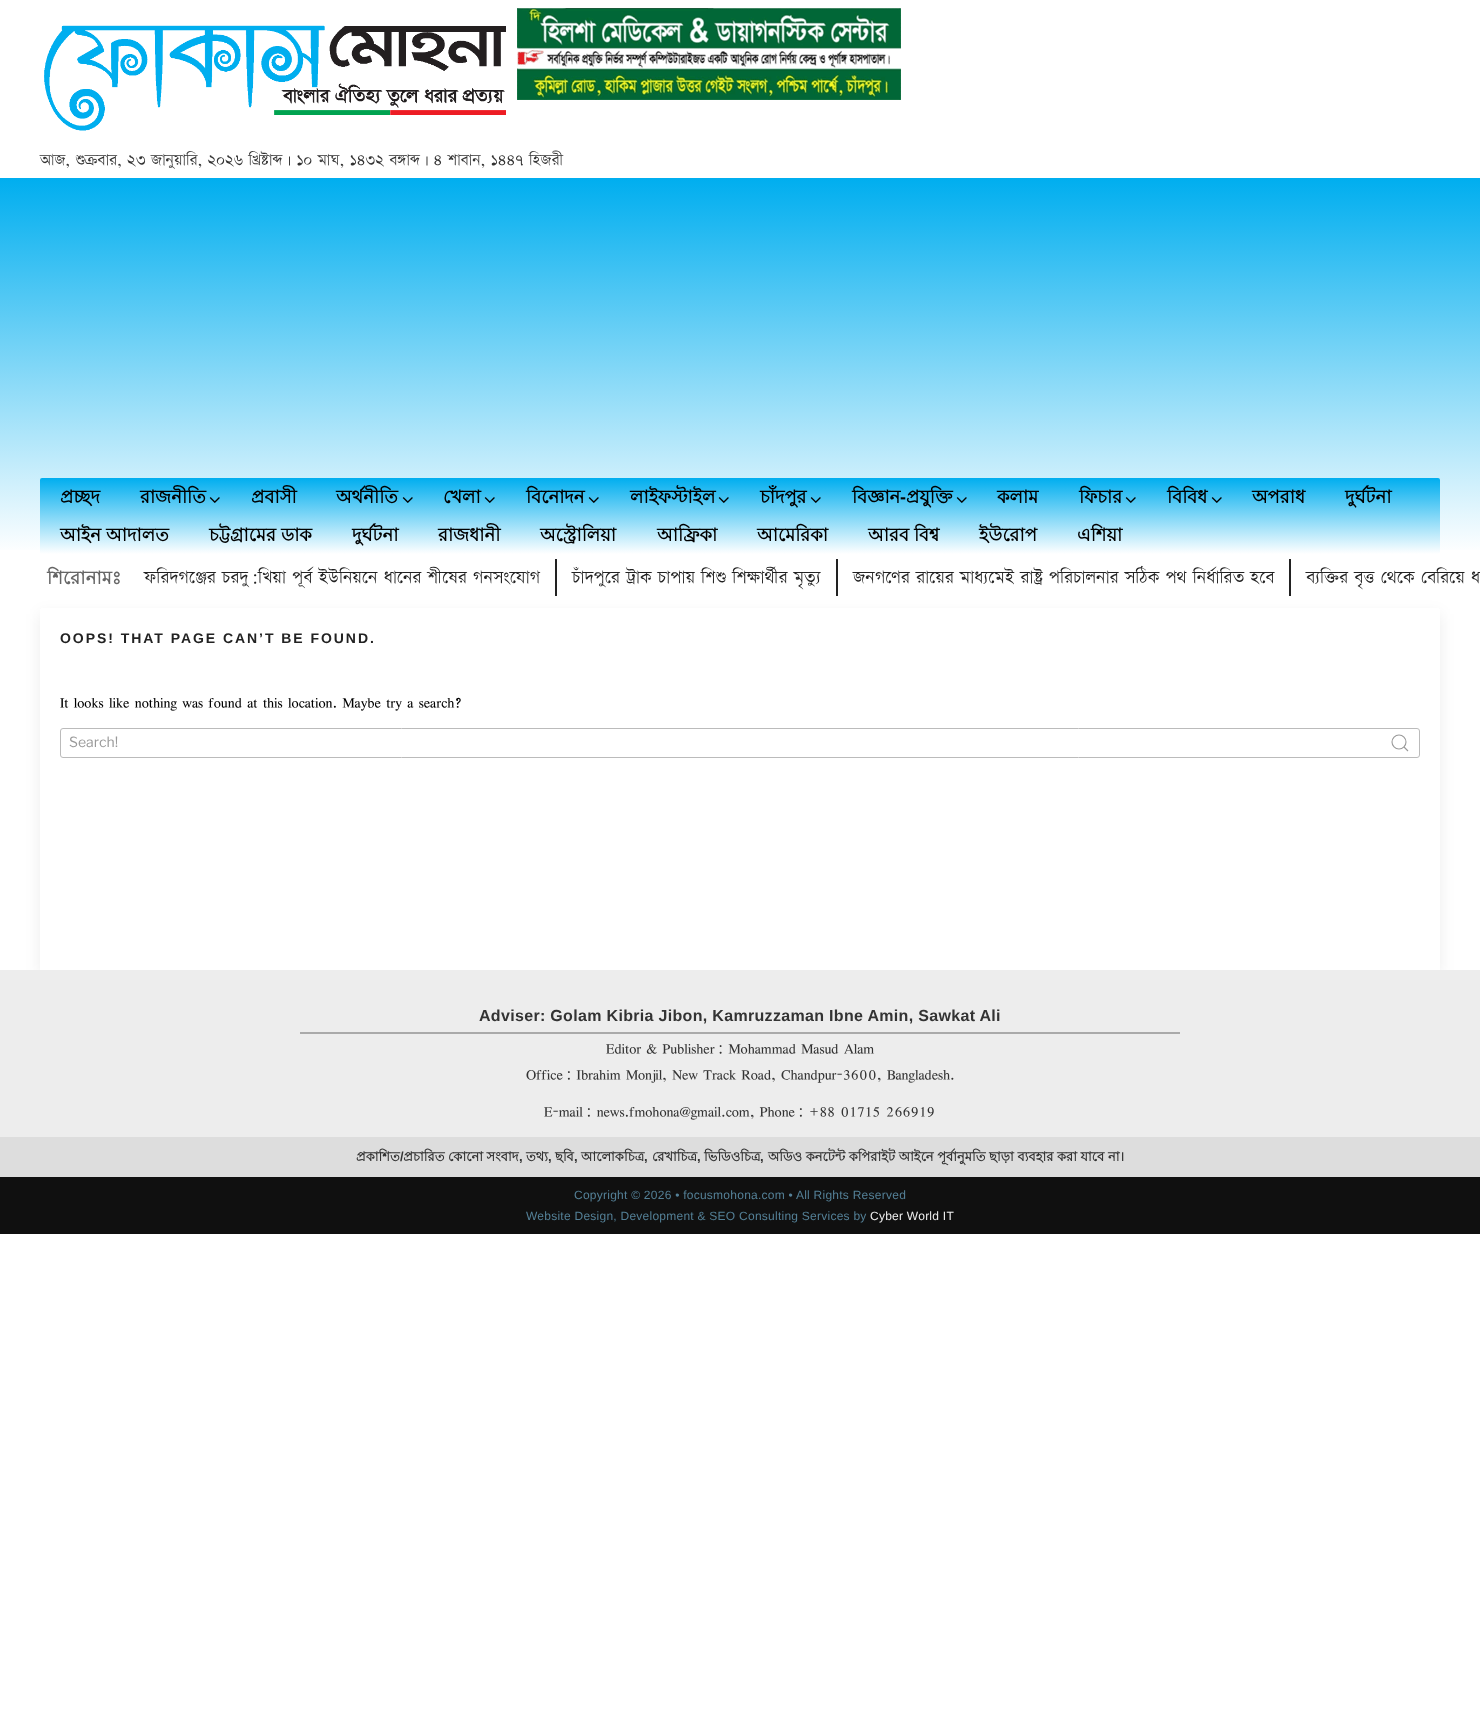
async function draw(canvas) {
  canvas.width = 1480
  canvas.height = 1731
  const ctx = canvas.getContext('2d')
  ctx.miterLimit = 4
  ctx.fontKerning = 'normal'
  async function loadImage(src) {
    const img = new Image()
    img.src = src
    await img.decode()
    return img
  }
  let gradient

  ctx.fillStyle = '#fff'
  ctx.fillRect(0, 0, 1480, 1731)
  ctx.save()
  ctx.beginPath()
  ctx.moveTo(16, 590)
  ctx.lineTo(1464, 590)
  ctx.lineTo(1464, 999)
  ctx.lineTo(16, 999)
  ctx.closePath()
  ctx.moveTo(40, 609)
  ctx.lineTo(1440, 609)
  ctx.lineTo(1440, 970)
  ctx.lineTo(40, 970)
  ctx.closePath()
  ctx.clip('evenodd')
  ctx.fillStyle = '#00000014'
  ctx.filter = 'blur(7.5px)'
  ctx.beginPath()
  ctx.rect(40, 614, 1400, 361)
  ctx.fill()
  ctx.filter = 'none'
  ctx.restore()
  ctx.fillRect(41, 608, 1398, 1)
  ctx.drawImage(await loadImage('image0.png'), 44, 25, 462, 106)
  ctx.drawImage(await loadImage('image1.png'), 517, 8, 384, 92)
  ctx.font = '16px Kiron'
  ctx.fillStyle = '#333'
  ctx.fillText('আজ, শুক্রবার, ২৩ জানুয়ারি, ২০২৬ খ্রিষ্টাব্দ | ১০ মাঘ, ১৪৩২ বঙ্গাব্দ | ৪ শাবান, ১৪৪৭ হিজরী', 40, 165)
  gradient = ctx.createLinearGradient(740, 178, 740, 554)
  gradient.addColorStop(0, '#00aeef')
  gradient.addColorStop(1, '#fff')
  ctx.fillStyle = gradient
  ctx.fillRect(0, 178, 1480, 372)
  gradient = ctx.createLinearGradient(740, 478, 740, 554)
  gradient.addColorStop(0, '#00aeef')
  gradient.addColorStop(1, '#fff')
  ctx.fillStyle = gradient
  ctx.beginPath()
  ctx.roundRect(40, 478, 1400, 76, 2)
  ctx.fill()
  ctx.font = 'bold 18px Lohit Bengali'
  ctx.fillStyle = '#000'
  ctx.fillText('প্রচ্ছদ', 60, 503)
  ctx.fillText('রাজনীতি', 140, 503)
  ctx.drawImage(await loadImage('image2.png'), 209, 497, 11, 6)
  ctx.fillText('প্রবাসী', 251, 503)
  ctx.fillText('অর্থনীতি', 336, 503)
  ctx.drawImage(await loadImage('image2.png'), 402, 497, 11, 6)
  ctx.fillText('খেলা', 443, 503)
  ctx.drawImage(await loadImage('image2.png'), 484, 497, 11, 6)
  ctx.fillText('বিনোদন', 526, 503)
  ctx.drawImage(await loadImage('image2.png'), 588, 497, 11, 6)
  ctx.fillText('লাইফস্টাইল', 630, 503)
  ctx.drawImage(await loadImage('image2.png'), 718, 497, 11, 6)
  ctx.fillText('চাঁদপুর', 760, 503)
  ctx.drawImage(await loadImage('image2.png'), 810, 497, 11, 6)
  ctx.fillText('বিজ্ঞান', 852, 503)
  ctx.font = 'bold 18px Liberation Sans'
  ctx.fillText('-', 900, 503)
  ctx.font = 'bold 18px Lohit Bengali'
  ctx.fillText('প্রযুক্তি', 906, 503)
  ctx.drawImage(await loadImage('image2.png'), 956, 497, 11, 6)
  ctx.fillText('কলাম', 997, 503)
  ctx.fillText('ফিচার', 1079, 503)
  ctx.drawImage(await loadImage('image2.png'), 1125, 497, 11, 6)
  ctx.fillText('বিবিধ', 1167, 503)
  ctx.drawImage(await loadImage('image2.png'), 1211, 497, 11, 6)
  ctx.fillText('অপরাধ', 1252, 503)
  ctx.fillText('দুর্ঘটনা', 1345, 503)
  ctx.fillText('আইন আদালত', 60, 541)
  ctx.fillText('চট্টগ্রামের ডাক', 209, 541)
  ctx.fillText('দুর্ঘটনা', 352, 541)
  ctx.fillText('রাজধানী', 438, 541)
  ctx.fillText('অস্ট্রোলিয়া', 540, 541)
  ctx.fillText('আফ্রিকা', 657, 541)
  ctx.fillText('আমেরিকা', 757, 541)
  ctx.fillText('আরব বিশ্ব', 868, 541)
  ctx.fillText('ইউরোপ', 979, 541)
  ctx.fillText('এশিয়া', 1077, 541)
  ctx.letterSpacing = '0.25px'
  ctx.fillStyle = '#666'
  ctx.fillText('শিরোনামঃ', 47, 584)
  ctx.fillStyle = '#222'
  ctx.fillRect(555, 559, 2, 37)
  ctx.letterSpacing = '0px'
  ctx.font = '18px Kiron'
  ctx.fillText('ফরিদগঞ্জের চরদু:খিয়া পূর্ব ইউনিয়নে ধানের শীষের গনসংযোগ', 144, 583)
  ctx.fillRect(836, 559, 2, 37)
  ctx.fillText('চাঁদপুরে ট্রাক চাপায় শিশু শিক্ষার্থীর মৃত্যু', 572, 583)
  ctx.fillRect(1289, 559, 2, 37)
  ctx.fillText('জনগণের রায়ের মাধ্যমেই রাষ্ট্র পরিচালনার সঠিক পথ নির্ধারিত হবে', 853, 583)
  ctx.fillText('ব্যক্তির বৃত্ত থেকে বেরিয়ে ধা', 1306, 583)
  ctx.letterSpacing = '1.95px'
  ctx.font = 'bold 14px Liberation Sans'
  ctx.fillText('OOPS! THAT PAGE CAN’T BE FOUND.', 60, 643)
  ctx.letterSpacing = '0px'
  ctx.font = '16px Kiron'
  ctx.fillStyle = '#000'
  ctx.fillText('It looks like nothing was found at this location. Maybe try a search?', 60, 707)
  ctx.beginPath()
  ctx.roundRect(60.5, 728.5, 1359, 29, 2.5)
  ctx.strokeStyle = '#bbb'
  ctx.stroke()
  ctx.font = '14px Libre Franklin'
  ctx.fillStyle = '#999'
  ctx.fillText('Search!', 69, 747)
  ctx.beginPath()
  ctx.arc(1399, 742, 7, 0, 2 * Math.PI)
  ctx.strokeStyle = '#999'
  ctx.lineWidth = 1.1
  ctx.stroke()
  ctx.beginPath()
  ctx.moveTo(1404, 747)
  ctx.lineTo(1408, 751)
  ctx.closePath()
  ctx.stroke()
  ctx.fillStyle = '#ededed'
  ctx.fillRect(0, 970, 1480, 167)
  ctx.fillStyle = '#aaa'
  ctx.fillRect(300, 1032, 880, 2)
  ctx.letterSpacing = '0.32px'
  ctx.font = 'bold 16px Liberation Sans'
  ctx.fillStyle = '#333'
  ctx.fillText('Adviser: Golam Kibria Jibon, Kamruzzaman Ibne Amin, Sawkat Ali', 479, 1021)
  ctx.letterSpacing = '0px'
  ctx.font = '16px Kiron'
  ctx.fillText('Editor & Publisher: Mohammad Masud Alam', 606, 1053)
  ctx.fillText('Office: Ibrahim Monjil, New Track Road, Chandpur-3600, Bangladesh.', 526, 1079)
  ctx.fillText('E-mail: news.fmohona@gmail.com, Phone: +88 01715 266919', 544, 1116)
  ctx.fillStyle = '#ddd'
  ctx.fillRect(0, 1137, 1480, 40)
  ctx.font = 'bold 13px Lohit Bengali'
  ctx.fillStyle = '#333'
  ctx.fillText('প্রকাশিত প্রচারিত কোনো সংবাদ', 356, 1161)
  ctx.fillText('ছবি', 555, 1161)
  ctx.fillText('আলোকচিত্র', 581, 1161)
  ctx.fillText('রেখাচিত্র', 652, 1161)
  ctx.fillText('ভিডিওচিত্র', 704, 1161)
  ctx.fillText('অডিও কনটেন্ট কপিরাইট আইনে পূর্বানুমতি ছাড়া ব্যবহার করা যাবে না।', 768, 1161)
  ctx.font = 'bold 13px Liberation Sans'
  ctx.fillText('/', 400, 1161)
  ctx.fillText(',', 519, 1161)
  ctx.font = 'bold 13px Lohit Bengali'
  ctx.fillText('তথ্য', 526, 1161)
  ctx.font = 'bold 13px Liberation Sans'
  ctx.fillText(',', 548, 1161)
  ctx.fillText(',', 574, 1161)
  ctx.fillText(',', 644, 1161)
  ctx.fillText(',', 697, 1161)
  ctx.fillText(',', 760, 1161)
  ctx.fillStyle = '#101010'
  ctx.fillRect(0, 1177, 1480, 57)
  ctx.letterSpacing = '0.25px'
  ctx.font = '12px Liberation Sans'
  ctx.fillStyle = '#548097'
  ctx.fillText('Copyright © 2026 • focusmohona.com • All Rights Reserved', 574, 1199)
  ctx.fillText('Website Design, Development & SEO Consulting Services by', 526, 1220)
  ctx.fillStyle = '#eee'
  ctx.fillText('Cyber World IT', 870, 1220)
}

draw(document.querySelector('canvas'))
